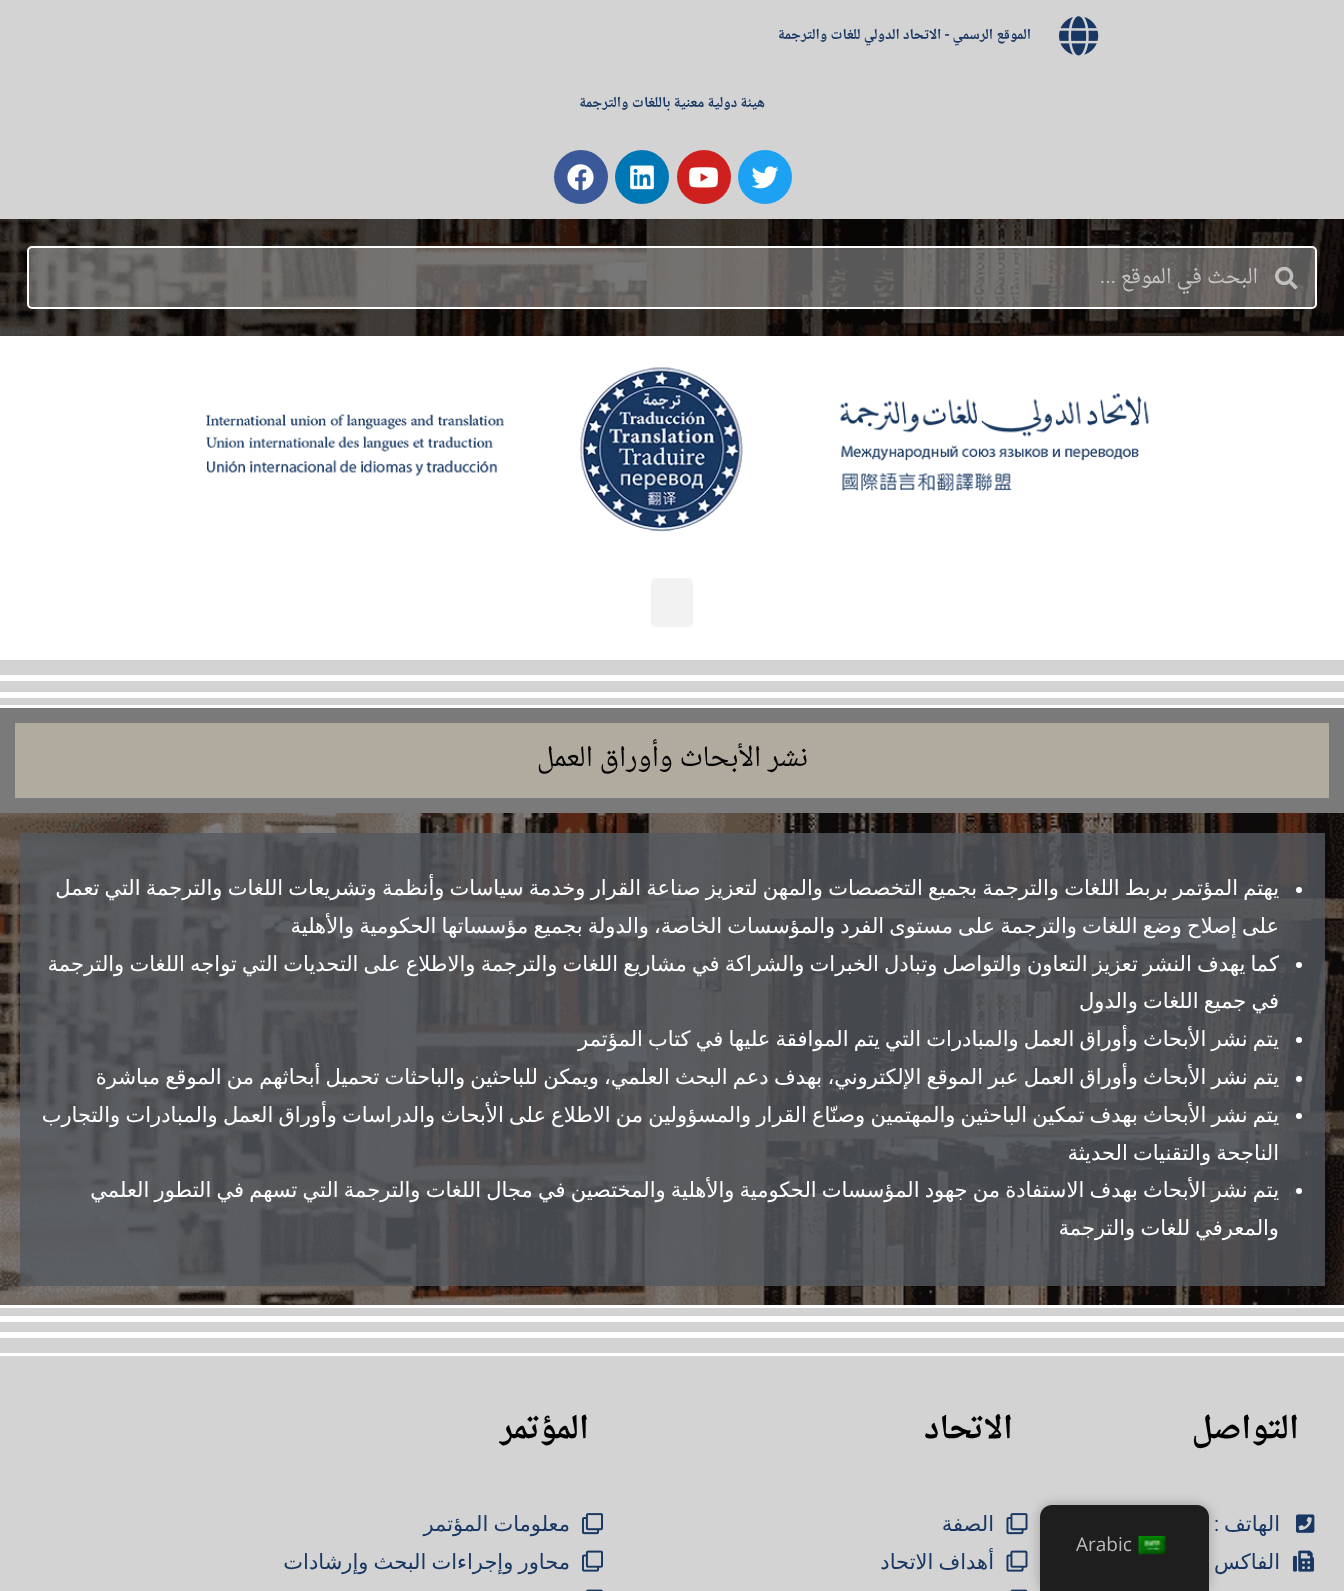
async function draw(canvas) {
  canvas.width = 1344
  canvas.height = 1591
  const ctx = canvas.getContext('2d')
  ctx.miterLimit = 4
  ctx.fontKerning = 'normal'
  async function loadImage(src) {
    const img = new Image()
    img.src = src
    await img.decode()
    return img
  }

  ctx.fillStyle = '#fff'
  ctx.fillRect(0, 0, 1344, 1591)
  ctx.fillStyle = '#d3d3d3'
  ctx.fillRect(0, 0, 1344, 219)
  ctx.drawImage(await loadImage('image0.png'), 1059, 16, 40, 40)
  ctx.direction = 'rtl'
  ctx.font = 'bold 15px Noto Naskh Arabic'
  ctx.fillStyle = '#183762'
  ctx.fillText('الموقع الرسمي - الاتحاد الدولي للغات والترجمة', 1031, 39)
  ctx.fillText('هيئة دولية معنية باللغات والترجمة', 765, 107)
  ctx.fillStyle = '#1da1f2'
  ctx.beginPath()
  ctx.arc(765, 177, 27, 0, 2 * Math.PI)
  ctx.fill()
  ctx.drawImage(await loadImage('image1.png'), 751, 166, 28, 23)
  ctx.fillStyle = '#cd201f'
  ctx.beginPath()
  ctx.arc(704, 177, 27, 0, 2 * Math.PI)
  ctx.fill()
  ctx.drawImage(await loadImage('image2.png'), 689, 167, 29, 21)
  ctx.fillStyle = '#0077b5'
  ctx.beginPath()
  ctx.arc(642, 177, 27, 0, 2 * Math.PI)
  ctx.fill()
  ctx.drawImage(await loadImage('image3.png'), 630, 165, 24, 25)
  ctx.fillStyle = '#3b5998'
  ctx.beginPath()
  ctx.arc(581, 177, 27, 0, 2 * Math.PI)
  ctx.fill()
  ctx.drawImage(await loadImage('image4.png'), 567, 164, 27, 27)
  ctx.drawImage(await loadImage('image5.png'), 0, 219, 1344, 117)
  ctx.fillStyle = '#a8a8a882'
  ctx.beginPath()
  ctx.roundRect(28, 247, 1288, 61, 4)
  ctx.fill()
  ctx.strokeStyle = '#fff'
  ctx.lineWidth = 2
  ctx.stroke()
  ctx.drawImage(await loadImage('image6.png'), 1275, 266, 23, 24)
  ctx.font = '19.5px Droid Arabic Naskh'
  ctx.fillStyle = '#c6c5c4'
  ctx.fillText('البحث في الموقع', 1258, 283)
  ctx.font = '19.5px Liberation Sans'
  ctx.fillText('...', 1116, 283)
  ctx.drawImage(await loadImage('image7.png'), 206, 367, 943, 165)
  ctx.fillStyle = '#f2f2f2'
  ctx.beginPath()
  ctx.roundRect(651, 578, 42, 49, 5)
  ctx.fill()
  ctx.fillStyle = '#d3d3d3'
  ctx.fillRect(0, 660, 1344, 15)
  ctx.fillRect(0, 681, 1344, 11)
  ctx.fillRect(0, 698, 1344, 7)
  ctx.fillStyle = '#7a7a7a'
  ctx.fillRect(0, 708, 1344, 105)
  ctx.fillStyle = '#b0ab9e'
  ctx.fillRect(15, 723, 1314, 75)
  ctx.font = '30px Noto Naskh Arabic'
  ctx.fillStyle = '#000'
  ctx.fillText('نشر الأبحاث وأوراق العمل', 808, 766)
  ctx.drawImage(await loadImage('image8.png'), 0, 813, 1344, 492)
  ctx.fillStyle = '#54595fcc'
  ctx.fillRect(20, 833, 1305, 453)
  ctx.fillStyle = '#fff'
  ctx.beginPath()
  ctx.arc(1299, 890, 3, 0, 2 * Math.PI)
  ctx.fill()
  ctx.wordSpacing = '-1.5px'
  ctx.font = '21px DejaVu Sans'
  ctx.fillText('يهتم المؤتمر بربط اللغات والترجمة بجميع التخصصات والمهن لتعزيز صناعة القرار وخدمة سياسات وأنظمة وتشريعات اللغات والترجمة التي تعمل', 1279, 895)
  ctx.fillText('على إصلاح وضع اللغات والترجمة على مستوى الفرد والمؤسسات الخاصة، والدولة بجميع مؤسساتها الحكومية والأهلية', 1279, 933)
  ctx.beginPath()
  ctx.arc(1299, 965, 3, 0, 2 * Math.PI)
  ctx.fill()
  ctx.fillText('كما يهدف النشر تعزيز التعاون والتواصل وتبادل الخبرات والشراكة في مشاريع اللغات والترجمة والاطلاع على التحديات التي تواجه اللغات والترجمة', 1279, 971)
  ctx.fillText('في جميع اللغات والدول', 1279, 1008)
  ctx.beginPath()
  ctx.arc(1299, 1040, 3, 0, 2 * Math.PI)
  ctx.fill()
  ctx.fillText('يتم نشر الأبحاث وأوراق العمل والمبادرات التي يتم الموافقة عليها في كتاب المؤتمر', 1279, 1046)
  ctx.beginPath()
  ctx.arc(1299, 1079, 3, 0, 2 * Math.PI)
  ctx.fill()
  ctx.fillText('يتم نشر الأبحاث وأوراق العمل عبر الموقع الإلكتروني، بهدف دعم البحث العلمي، ويمكن للباحثين والباحثات تحميل أبحاثهم من الموقع مباشرة', 1279, 1084)
  ctx.beginPath()
  ctx.arc(1299, 1116, 3, 0, 2 * Math.PI)
  ctx.fill()
  ctx.fillText('يتم نشر الأبحاث بهدف تمكين الباحثين والمهتمين وصنّاع القرار والمسؤولين من الاطلاع على الأبحاث والدراسات وأوراق العمل والمبادرات والتجارب', 1279, 1122)
  ctx.fillText('الناجحة والتقنيات الحديثة', 1279, 1160)
  ctx.beginPath()
  ctx.arc(1299, 1191, 3, 0, 2 * Math.PI)
  ctx.fill()
  ctx.fillText('يتم نشر الأبحاث بهدف الاستفادة من جهود المؤسسات الحكومية والأهلية والمختصين في مجال اللغات والترجمة التي تسهم في التطور العلمي', 1279, 1197)
  ctx.fillText('والمعرفي للغات والترجمة', 1279, 1235)
  ctx.fillStyle = '#d3d3d3'
  ctx.fillRect(0, 1308, 1344, 8)
  ctx.fillRect(0, 1322, 1344, 10)
  ctx.fillRect(0, 1338, 1344, 15)
  ctx.fillRect(0, 1356, 1344, 235)
  ctx.wordSpacing = '0px'
  ctx.font = 'bold 30px Droid Arabic Naskh'
  ctx.fillStyle = '#000'
  ctx.fillText('التواصل', 1299, 1438)
  ctx.drawImage(await loadImage('image9.png'), 1296, 1514, 19, 19)
  ctx.font = '21px DejaVu Sans'
  ctx.fillStyle = '#183762'
  ctx.fillText('الهاتف', 1280, 1531)
  ctx.font = '21px Roboto'
  ctx.fillText(':', 1219, 1531)
  ctx.drawImage(await loadImage('image10.png'), 1293, 1550, 21, 22)
  ctx.font = '21px DejaVu Sans'
  ctx.fillText('الفاكس', 1280, 1569)
  ctx.font = 'bold 30px Droid Arabic Naskh'
  ctx.fillStyle = '#000'
  ctx.fillText('الاتحاد', 1013, 1438)
  ctx.drawImage(await loadImage('image11.png'), 1006, 1513, 22, 22)
  ctx.font = '21px DejaVu Sans'
  ctx.fillStyle = '#183762'
  ctx.fillText('الصفة', 994, 1531)
  ctx.drawImage(await loadImage('image12.png'), 1006, 1550, 22, 22)
  ctx.wordSpacing = '-1.5px'
  ctx.fillText('أهداف الاتحاد', 994, 1569)
  ctx.drawImage(await loadImage('image13.png'), 1010, 1589, 18, 2)
  ctx.wordSpacing = '0px'
  ctx.font = 'bold 30px Droid Arabic Naskh'
  ctx.fillStyle = '#000'
  ctx.fillText('المؤتمر', 589, 1438)
  ctx.drawImage(await loadImage('image14.png'), 582, 1513, 21, 22)
  ctx.wordSpacing = '-1.5px'
  ctx.font = '21px DejaVu Sans'
  ctx.fillStyle = '#183762'
  ctx.fillText('معلومات المؤتمر', 570, 1531)
  ctx.drawImage(await loadImage('image15.png'), 582, 1550, 21, 22)
  ctx.fillText('محاور وإجراءات البحث وإرشادات', 570, 1569)
  ctx.drawImage(await loadImage('image16.png'), 586, 1589, 17, 2)
  ctx.fillStyle = '#00000040'
  ctx.filter = 'blur(6px)'
  ctx.beginPath()
  ctx.roundRect(1040, 1505, 169, 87, 12)
  ctx.fill()
  ctx.filter = 'none'
  ctx.fillStyle = '#1e1e1e'
  ctx.beginPath()
  ctx.moveTo(1052, 1505)
  ctx.lineTo(1197, 1505)
  ctx.bezierCurveTo(1203.5, 1505, 1209, 1510.5, 1209, 1517)
  ctx.lineTo(1209, 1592)
  ctx.lineTo(1040, 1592)
  ctx.lineTo(1040, 1517)
  ctx.bezierCurveTo(1040, 1510.5, 1045.5, 1505, 1052, 1505)
  ctx.closePath()
  ctx.fill()
  ctx.drawImage(await loadImage('image17.png'), 1138, 1536, 28, 19)
  ctx.wordSpacing = '0px'
  ctx.direction = 'ltr'
  ctx.font = '19px Open Sans'
  ctx.fillStyle = '#bdbdbd'
  ctx.fillText('Arabic', 1076, 1551)
}

draw(document.querySelector('canvas'))
